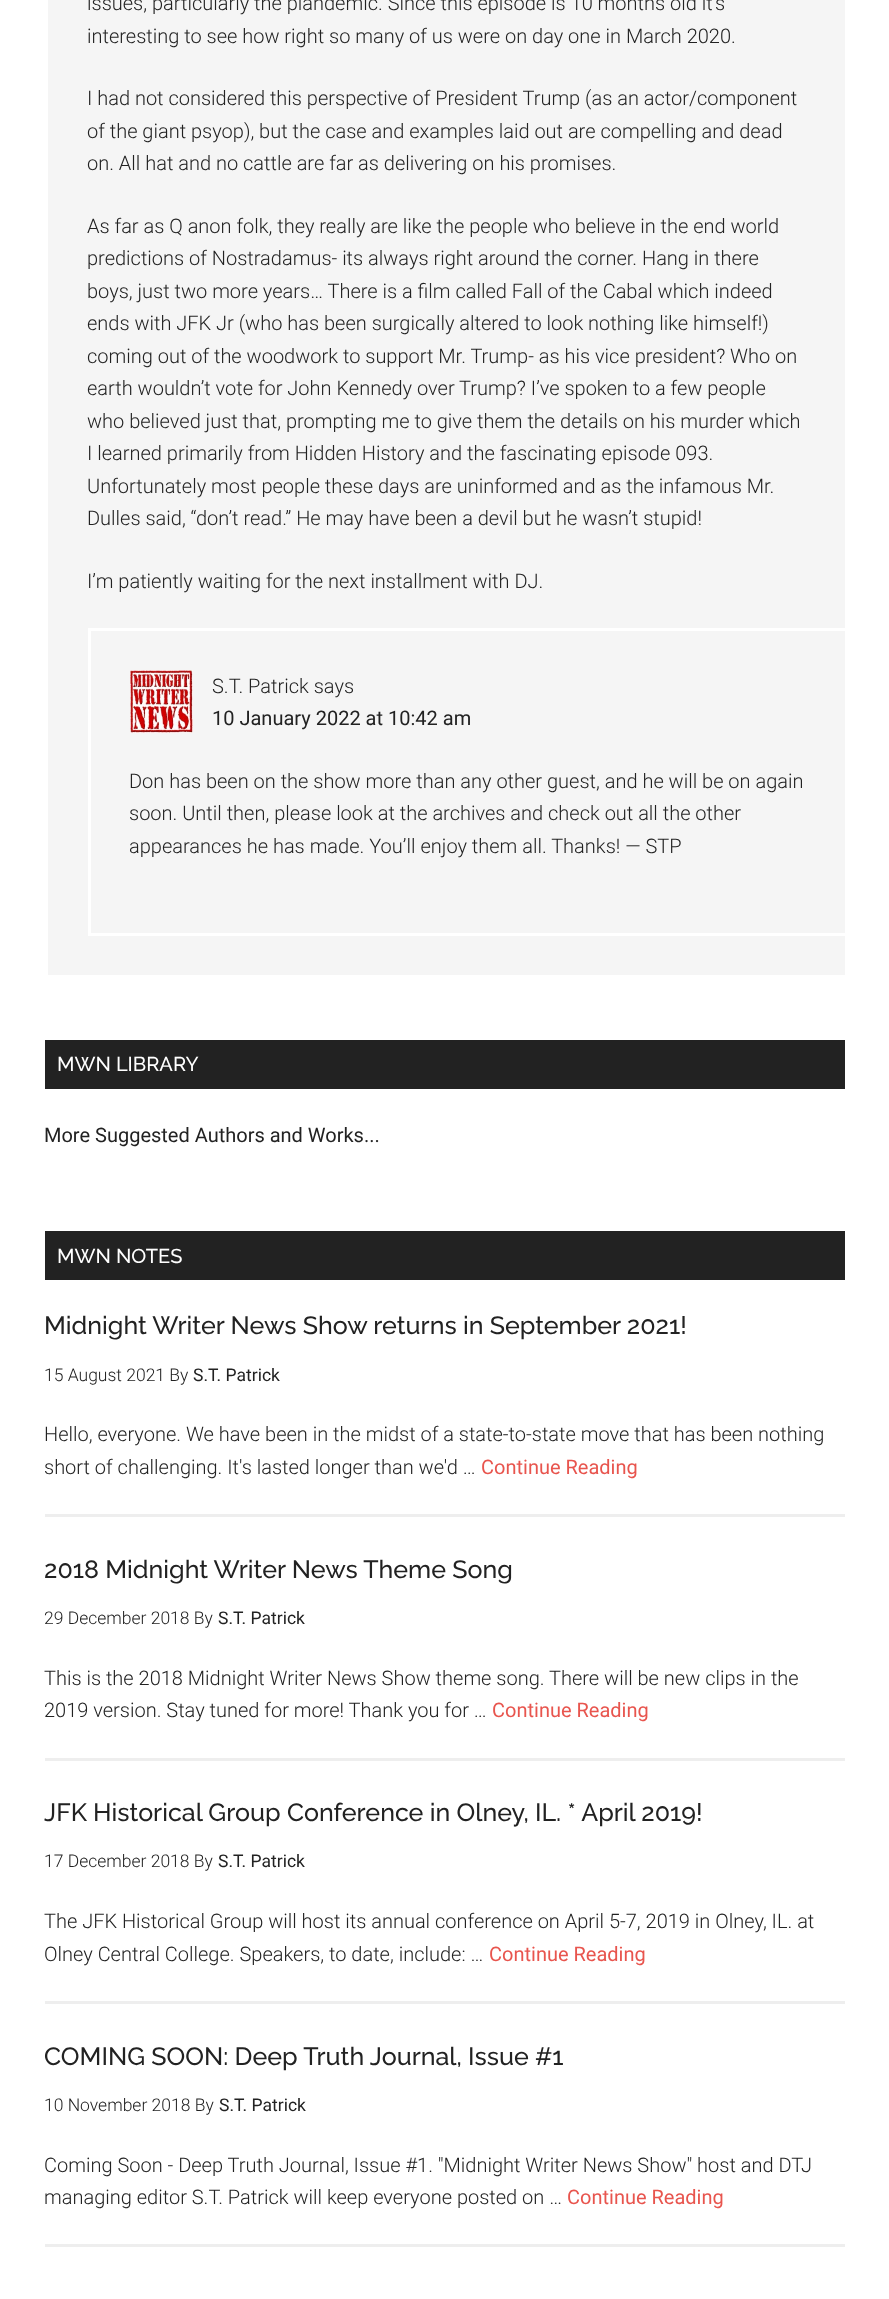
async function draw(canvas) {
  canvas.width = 889
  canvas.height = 2299
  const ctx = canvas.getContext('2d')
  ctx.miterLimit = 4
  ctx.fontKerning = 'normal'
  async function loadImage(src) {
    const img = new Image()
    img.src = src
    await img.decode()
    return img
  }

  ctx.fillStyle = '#fff'
  ctx.fillRect(0, 0, 889, 2299)
  ctx.fillStyle = '#f5f5f5'
  ctx.fillRect(48, 0, 797, 975)
  ctx.font = '300 20px Roboto'
  ctx.fillStyle = '#222'
  ctx.fillText('issues, particularly the plandemic. Since this episode is 10 months old it’s', 87, 10)
  ctx.fillText('interesting to see how right so many of us were on day one in March 2020.', 87, 43)
  ctx.fillText('I had not considered this perspective of President Trump (as an actor/component', 87, 105)
  ctx.fillText('of the giant psyop), but the case and examples laid out are compelling and dead', 87, 138)
  ctx.fillText('on. All hat and no cattle are far as delivering on his promises.', 87, 170)
  ctx.fillText('As far as Q anon folk, they really are like the people who believe in the end world', 87, 233)
  ctx.fillText('predictions of Nostradamus- its always right around the corner. Hang in there', 87, 265)
  ctx.fillText('boys, just two more years… There is a film called Fall of the Cabal which indeed', 87, 298)
  ctx.fillText('ends with JFK Jr (who has been surgically altered to look nothing like himself!)', 87, 330)
  ctx.fillText('coming out of the woodwork to support Mr. Trump- as his vice president? Who on', 87, 363)
  ctx.fillText('earth wouldn’t vote for John Kennedy over Trump? I’ve spoken to a few people', 87, 395)
  ctx.fillText('who believed just that, prompting me to give them the details on his murder which', 87, 428)
  ctx.fillText('I learned primarily from Hidden History and the fascinating episode 093.', 87, 460)
  ctx.fillText('Unfortunately most people these days are uninformed and as the infamous Mr.', 87, 493)
  ctx.fillText('Dulles said, “don’t read.” He may have been a devil but he wasn’t stupid!', 87, 525)
  ctx.fillText('I’m patiently waiting for the next installment with DJ.', 87, 588)
  ctx.fillStyle = '#fff'
  ctx.fillRect(88, 628, 757, 3)
  ctx.fillRect(88, 933, 757, 3)
  ctx.fillRect(88, 628, 3, 307)
  ctx.drawImage(await loadImage('image0.png'), 130, 670, 63, 63)
  ctx.fillStyle = '#222'
  ctx.fillText('S.T. Patrick says', 212, 693)
  ctx.font = '20px Roboto'
  ctx.fillText('10 January 2022 at 10:42 am', 212, 725)
  ctx.font = '300 20px Roboto'
  ctx.fillText('Don has been on the show more than any other guest, and he will be on again', 129, 788)
  ctx.fillText('soon. Until then, please look at the archives and check out all the other', 129, 820)
  ctx.fillText('appearances he has made. You’ll enjoy them all. Thanks! — STP', 129, 853)
  ctx.fillRect(45, 1040, 800, 49)
  ctx.font = '500 20px Raleway'
  ctx.fillStyle = '#fff'
  ctx.fillText('MWN LIBRARY', 57, 1071)
  ctx.font = '20px Roboto'
  ctx.fillStyle = '#222'
  ctx.fillText('More Suggested Authors and Works...', 44, 1142)
  ctx.fillRect(45, 1231, 800, 49)
  ctx.font = '500 20px Raleway'
  ctx.fillStyle = '#fff'
  ctx.fillText('MWN NOTES', 57, 1263)
  ctx.fillStyle = '#eee'
  ctx.fillRect(45, 1514, 800, 3)
  ctx.font = '500 25px Raleway'
  ctx.fillStyle = '#222'
  ctx.fillText('Midnight Writer News Show returns in September 2021!', 44, 1334)
  ctx.font = '300 17.5px Roboto'
  ctx.fillText('15 August 2021 By', 44, 1381)
  ctx.font = '17.5px Roboto'
  ctx.fillText('S.T. Patrick', 193, 1381)
  ctx.font = '300 20px Roboto'
  ctx.fillText('Hello, everyone. We have been in the midst of a state-to-state move that has been nothing', 44, 1441)
  ctx.fillText('short of challenging. It\'s lasted longer than we\'d …', 44, 1474)
  ctx.font = '20px Roboto'
  ctx.fillStyle = '#e8554e'
  ctx.fillText('Continue Reading', 481, 1474)
  ctx.fillStyle = '#eee'
  ctx.fillRect(45, 1758, 800, 3)
  ctx.font = '500 25px Raleway'
  ctx.fillStyle = '#222'
  ctx.fillText('2018 Midnight Writer News Theme Song', 44, 1578)
  ctx.font = '300 17.5px Roboto'
  ctx.fillText('29 December 2018 By', 44, 1624)
  ctx.font = '17.5px Roboto'
  ctx.fillText('S.T. Patrick', 218, 1624)
  ctx.font = '300 20px Roboto'
  ctx.fillText('This is the 2018 Midnight Writer News Show theme song. There will be new clips in the', 44, 1685)
  ctx.fillText('2019 version. Stay tuned for more! Thank you for …', 44, 1717)
  ctx.font = '20px Roboto'
  ctx.fillStyle = '#e8554e'
  ctx.fillText('Continue Reading', 492, 1717)
  ctx.fillStyle = '#eee'
  ctx.fillRect(45, 2001, 800, 3)
  ctx.font = '500 25px Raleway'
  ctx.fillStyle = '#222'
  ctx.fillText('JFK Historical Group Conference in Olney, IL. * April 2019!', 44, 1821)
  ctx.font = '300 17.5px Roboto'
  ctx.fillText('17 December 2018 By', 44, 1867)
  ctx.font = '17.5px Roboto'
  ctx.fillText('S.T. Patrick', 218, 1867)
  ctx.font = '300 20px Roboto'
  ctx.fillText('The JFK Historical Group will host its annual conference on April 5-7, 2019 in Olney, IL. at', 44, 1928)
  ctx.fillText('Olney Central College. Speakers, to date, include: …', 44, 1961)
  ctx.font = '20px Roboto'
  ctx.fillStyle = '#e8554e'
  ctx.fillText('Continue Reading', 489, 1961)
  ctx.fillStyle = '#eee'
  ctx.fillRect(45, 2244, 800, 3)
  ctx.font = '500 25px Raleway'
  ctx.fillStyle = '#222'
  ctx.fillText('COMING SOON: Deep Truth Journal, Issue #1', 44, 2065)
  ctx.font = '300 17.5px Roboto'
  ctx.fillText('10 November 2018 By', 44, 2111)
  ctx.font = '17.5px Roboto'
  ctx.fillText('S.T. Patrick', 219, 2111)
  ctx.font = '300 20px Roboto'
  ctx.fillText('Coming Soon - Deep Truth Journal, Issue #1. "Midnight Writer News Show" host and DTJ', 44, 2172)
  ctx.fillText('managing editor S.T. Patrick will keep everyone posted on …', 44, 2204)
  ctx.font = '20px Roboto'
  ctx.fillStyle = '#e8554e'
  ctx.fillText('Continue Reading', 567, 2204)
}

draw(document.querySelector('canvas'))
